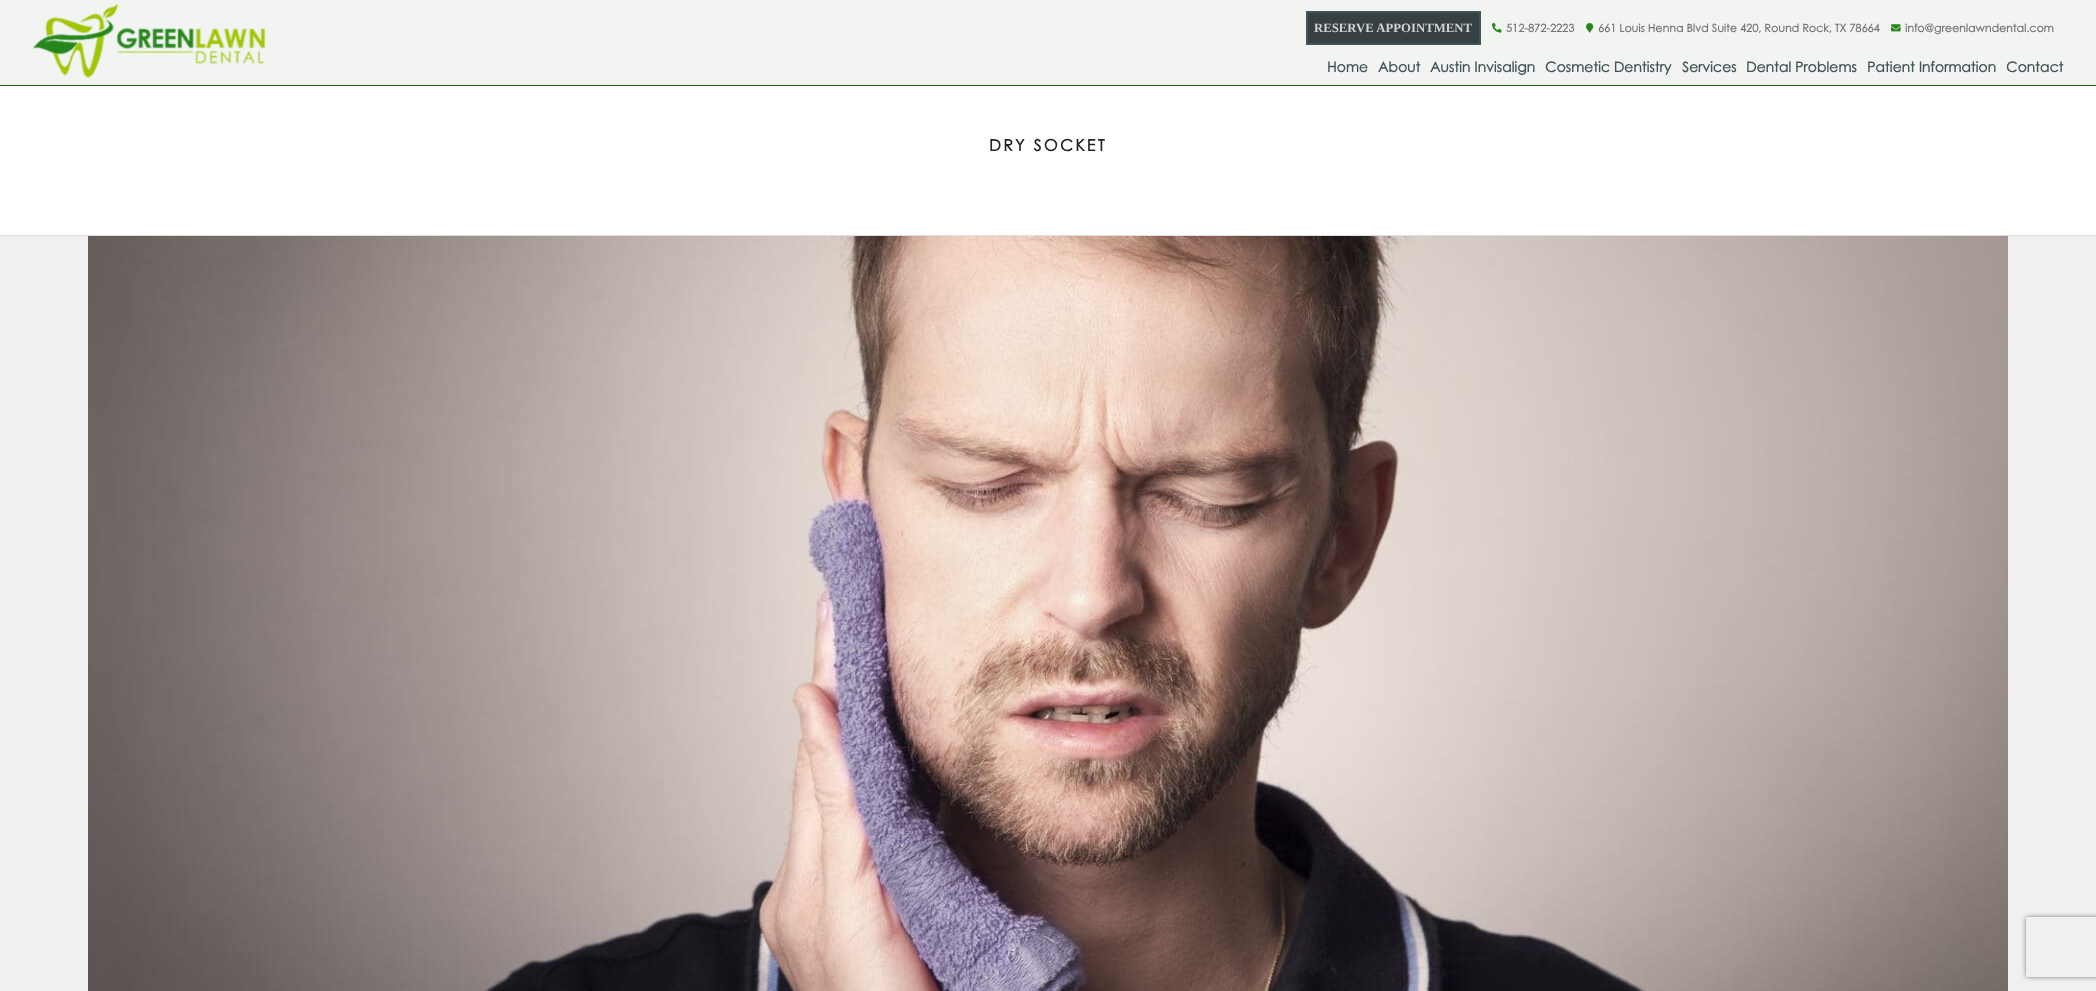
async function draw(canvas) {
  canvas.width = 2096
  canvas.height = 991
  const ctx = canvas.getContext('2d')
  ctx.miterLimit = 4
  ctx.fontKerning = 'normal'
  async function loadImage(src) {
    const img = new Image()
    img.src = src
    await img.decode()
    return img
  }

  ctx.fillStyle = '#fff'
  ctx.fillRect(0, 0, 2096, 991)
  ctx.fillStyle = '#f2f4f2'
  ctx.fillRect(0, 0, 2096, 85)
  ctx.fillStyle = '#106d0c'
  ctx.fillRect(0, 85, 2096, 1)
  ctx.fillStyle = '#374143'
  ctx.beginPath()
  ctx.rect(1307, 12, 173, 32)
  ctx.fill()
  ctx.strokeStyle = '#425559'
  ctx.lineWidth = 2
  ctx.stroke()
  ctx.font = 'bold 12.75px Liberation Serif'
  ctx.fillStyle = '#d3d3d3'
  ctx.fillText('RESERVE APPOINTMENT', 1314, 32)
  ctx.drawImage(await loadImage('image0.png'), 1492, 23, 10, 10)
  ctx.font = 'bold 11px Century Gothic'
  ctx.fillStyle = '#767676'
  ctx.fillText('512-872-2223', 1506, 32)
  ctx.drawImage(await loadImage('image1.png'), 1586, 23, 8, 10)
  ctx.fillText('661 Louis Henna Blvd Suite 420, Round Rock, TX 78664', 1598, 32)
  ctx.drawImage(await loadImage('image2.png'), 1891, 24, 10, 8)
  ctx.fillText('info@greenlawndental.com', 1905, 32)
  ctx.drawImage(await loadImage('image3.png'), 32, 4, 234, 75)
  ctx.font = 'bold 14px Century Gothic'
  ctx.fillStyle = '#425559'
  ctx.fillText('Home', 1327, 72)
  ctx.fillText('About', 1378, 72)
  ctx.fillText('Austin Invisalign', 1430, 72)
  ctx.fillText('Cosmetic Dentistry', 1545, 72)
  ctx.fillText('Services', 1682, 72)
  ctx.fillText('Dental Problems', 1746, 72)
  ctx.fillText('Patient Information', 1867, 72)
  ctx.fillText('Contact', 2006, 72)
  ctx.letterSpacing = '2.25px'
  ctx.font = 'bold 16px Century Gothic'
  ctx.fillStyle = '#222'
  ctx.fillText('DRY SOCKET', 989, 151)
  ctx.fillStyle = '#f0f0f0'
  ctx.fillRect(0, 236, 2096, 755)
  ctx.fillStyle = '#e0e0e0'
  ctx.fillRect(0, 235, 2096, 1)
  ctx.drawImage(await loadImage('image4.png'), 88, 236, 1920, 755)
  ctx.save()
  ctx.beginPath()
  ctx.moveTo(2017, 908)
  ctx.lineTo(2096, 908)
  ctx.lineTo(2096, 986)
  ctx.lineTo(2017, 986)
  ctx.closePath()
  ctx.moveTo(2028, 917)
  ctx.lineTo(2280, 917)
  ctx.bezierCurveTo(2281, 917, 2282, 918, 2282, 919)
  ctx.lineTo(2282, 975)
  ctx.bezierCurveTo(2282, 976, 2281, 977, 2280, 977)
  ctx.lineTo(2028, 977)
  ctx.bezierCurveTo(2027, 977, 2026, 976, 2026, 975)
  ctx.lineTo(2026, 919)
  ctx.bezierCurveTo(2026, 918, 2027, 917, 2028, 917)
  ctx.closePath()
  ctx.clip('evenodd')
  ctx.fillStyle = '#808080'
  ctx.filter = 'blur(2.5px)'
  ctx.beginPath()
  ctx.roundRect(2026, 917, 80, 60, 2)
  ctx.fill()
  ctx.filter = 'none'
  ctx.restore()
}

draw(document.querySelector('canvas'))
